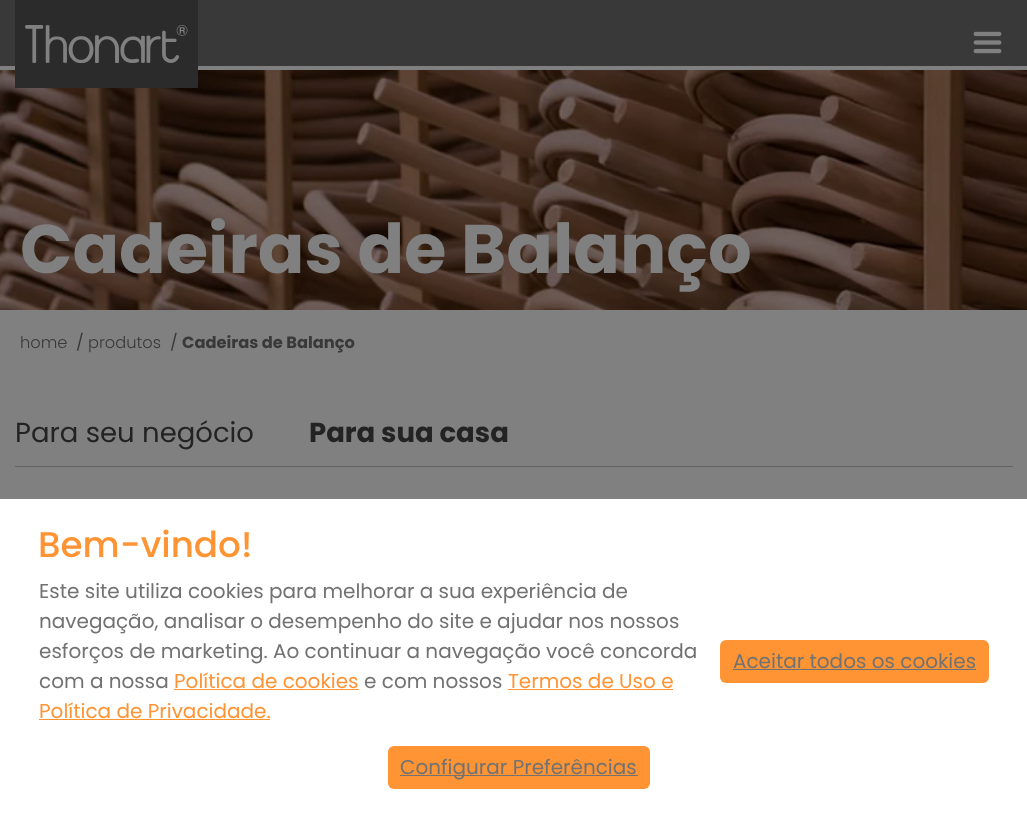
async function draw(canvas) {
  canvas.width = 1027
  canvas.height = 813
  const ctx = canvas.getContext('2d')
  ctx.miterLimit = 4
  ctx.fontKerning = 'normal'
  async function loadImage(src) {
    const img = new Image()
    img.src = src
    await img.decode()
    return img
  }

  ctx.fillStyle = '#808080'
  ctx.fillRect(0, 0, 1027, 813)
  ctx.fillStyle = '#393939'
  ctx.fillRect(0, 0, 1027, 66)
  ctx.drawImage(await loadImage('image2.png'), 0, 70, 1027, 240)
  ctx.fillStyle = '#2b2b2b'
  ctx.fillRect(15, 0, 183, 88)
  ctx.drawImage(await loadImage('image0.png'), 25, 25, 163, 38)
  ctx.drawImage(await loadImage('image1.png'), 973, 31, 29, 23)
  ctx.font = 'bold 68.75px Poppins'
  ctx.fillStyle = '#808080'
  ctx.fillText('Cadeiras de Balanço', 20, 273)
  ctx.font = '300 16.25px Poppins'
  ctx.fillStyle = '#393939'
  ctx.fillText('home', 20, 348)
  ctx.font = '16.25px Poppins'
  ctx.fillText('/', 76, 348)
  ctx.font = '300 16.25px Poppins'
  ctx.fillText('produtos', 88, 348)
  ctx.font = '16.25px Poppins'
  ctx.fillText('/', 170, 348)
  ctx.font = 'bold 16.25px Poppins'
  ctx.fillText('Cadeiras de Balanço', 182, 348)
  ctx.fillStyle = '#626262'
  ctx.fillRect(15, 466, 998, 1)
  ctx.font = '27.5px Poppins'
  ctx.fillStyle = '#232323'
  ctx.fillText('Para seu negócio', 15, 442)
  ctx.font = 'bold 27.5px Poppins'
  ctx.fillText('Para sua casa', 309, 442)
  ctx.fillStyle = '#fff'
  ctx.fillRect(0, 499, 1027, 314)
  ctx.font = '500 35.75px Poppins'
  ctx.fillStyle = '#ff9434'
  ctx.fillText('Bem-vindo!', 38, 557)
  ctx.font = '20px Poppins'
  ctx.fillStyle = '#727272'
  ctx.fillText('Este site utiliza cookies para melhorar a sua experiência de', 39, 598)
  ctx.fillText('navegação, analisar o desempenho do site e ajudar nos nossos', 39, 628)
  ctx.fillText('esforços de marketing. Ao continuar a navegação você concorda', 39, 658)
  ctx.fillText('com a nossa', 39, 688)
  ctx.fillStyle = '#ff9434'
  ctx.fillText('Política de cookies', 174, 688)
  ctx.fillRect(174, 689, 185, 1)
  ctx.fillStyle = '#727272'
  ctx.fillText('e com nossos', 364, 688)
  ctx.fillStyle = '#ff9434'
  ctx.fillText('Termos de Uso e', 508, 688)
  ctx.fillRect(508, 689, 165, 1)
  ctx.fillText('Política de Privacidade.', 39, 718)
  ctx.fillRect(39, 719, 231, 1)
  ctx.beginPath()
  ctx.roundRect(720, 640, 269, 43, 6)
  ctx.fill()
  ctx.fillStyle = '#727272'
  ctx.fillText('Aceitar todos os cookies', 733, 668)
  ctx.fillRect(733, 669, 243, 1)
  ctx.fillStyle = '#ff9434'
  ctx.beginPath()
  ctx.roundRect(388, 746, 262, 43, 6)
  ctx.fill()
  ctx.fillStyle = '#727272'
  ctx.fillRect(400, 775, 238, 1)
  ctx.fillText('Configurar Preferências', 400, 774)
}

draw(document.querySelector('canvas'))
